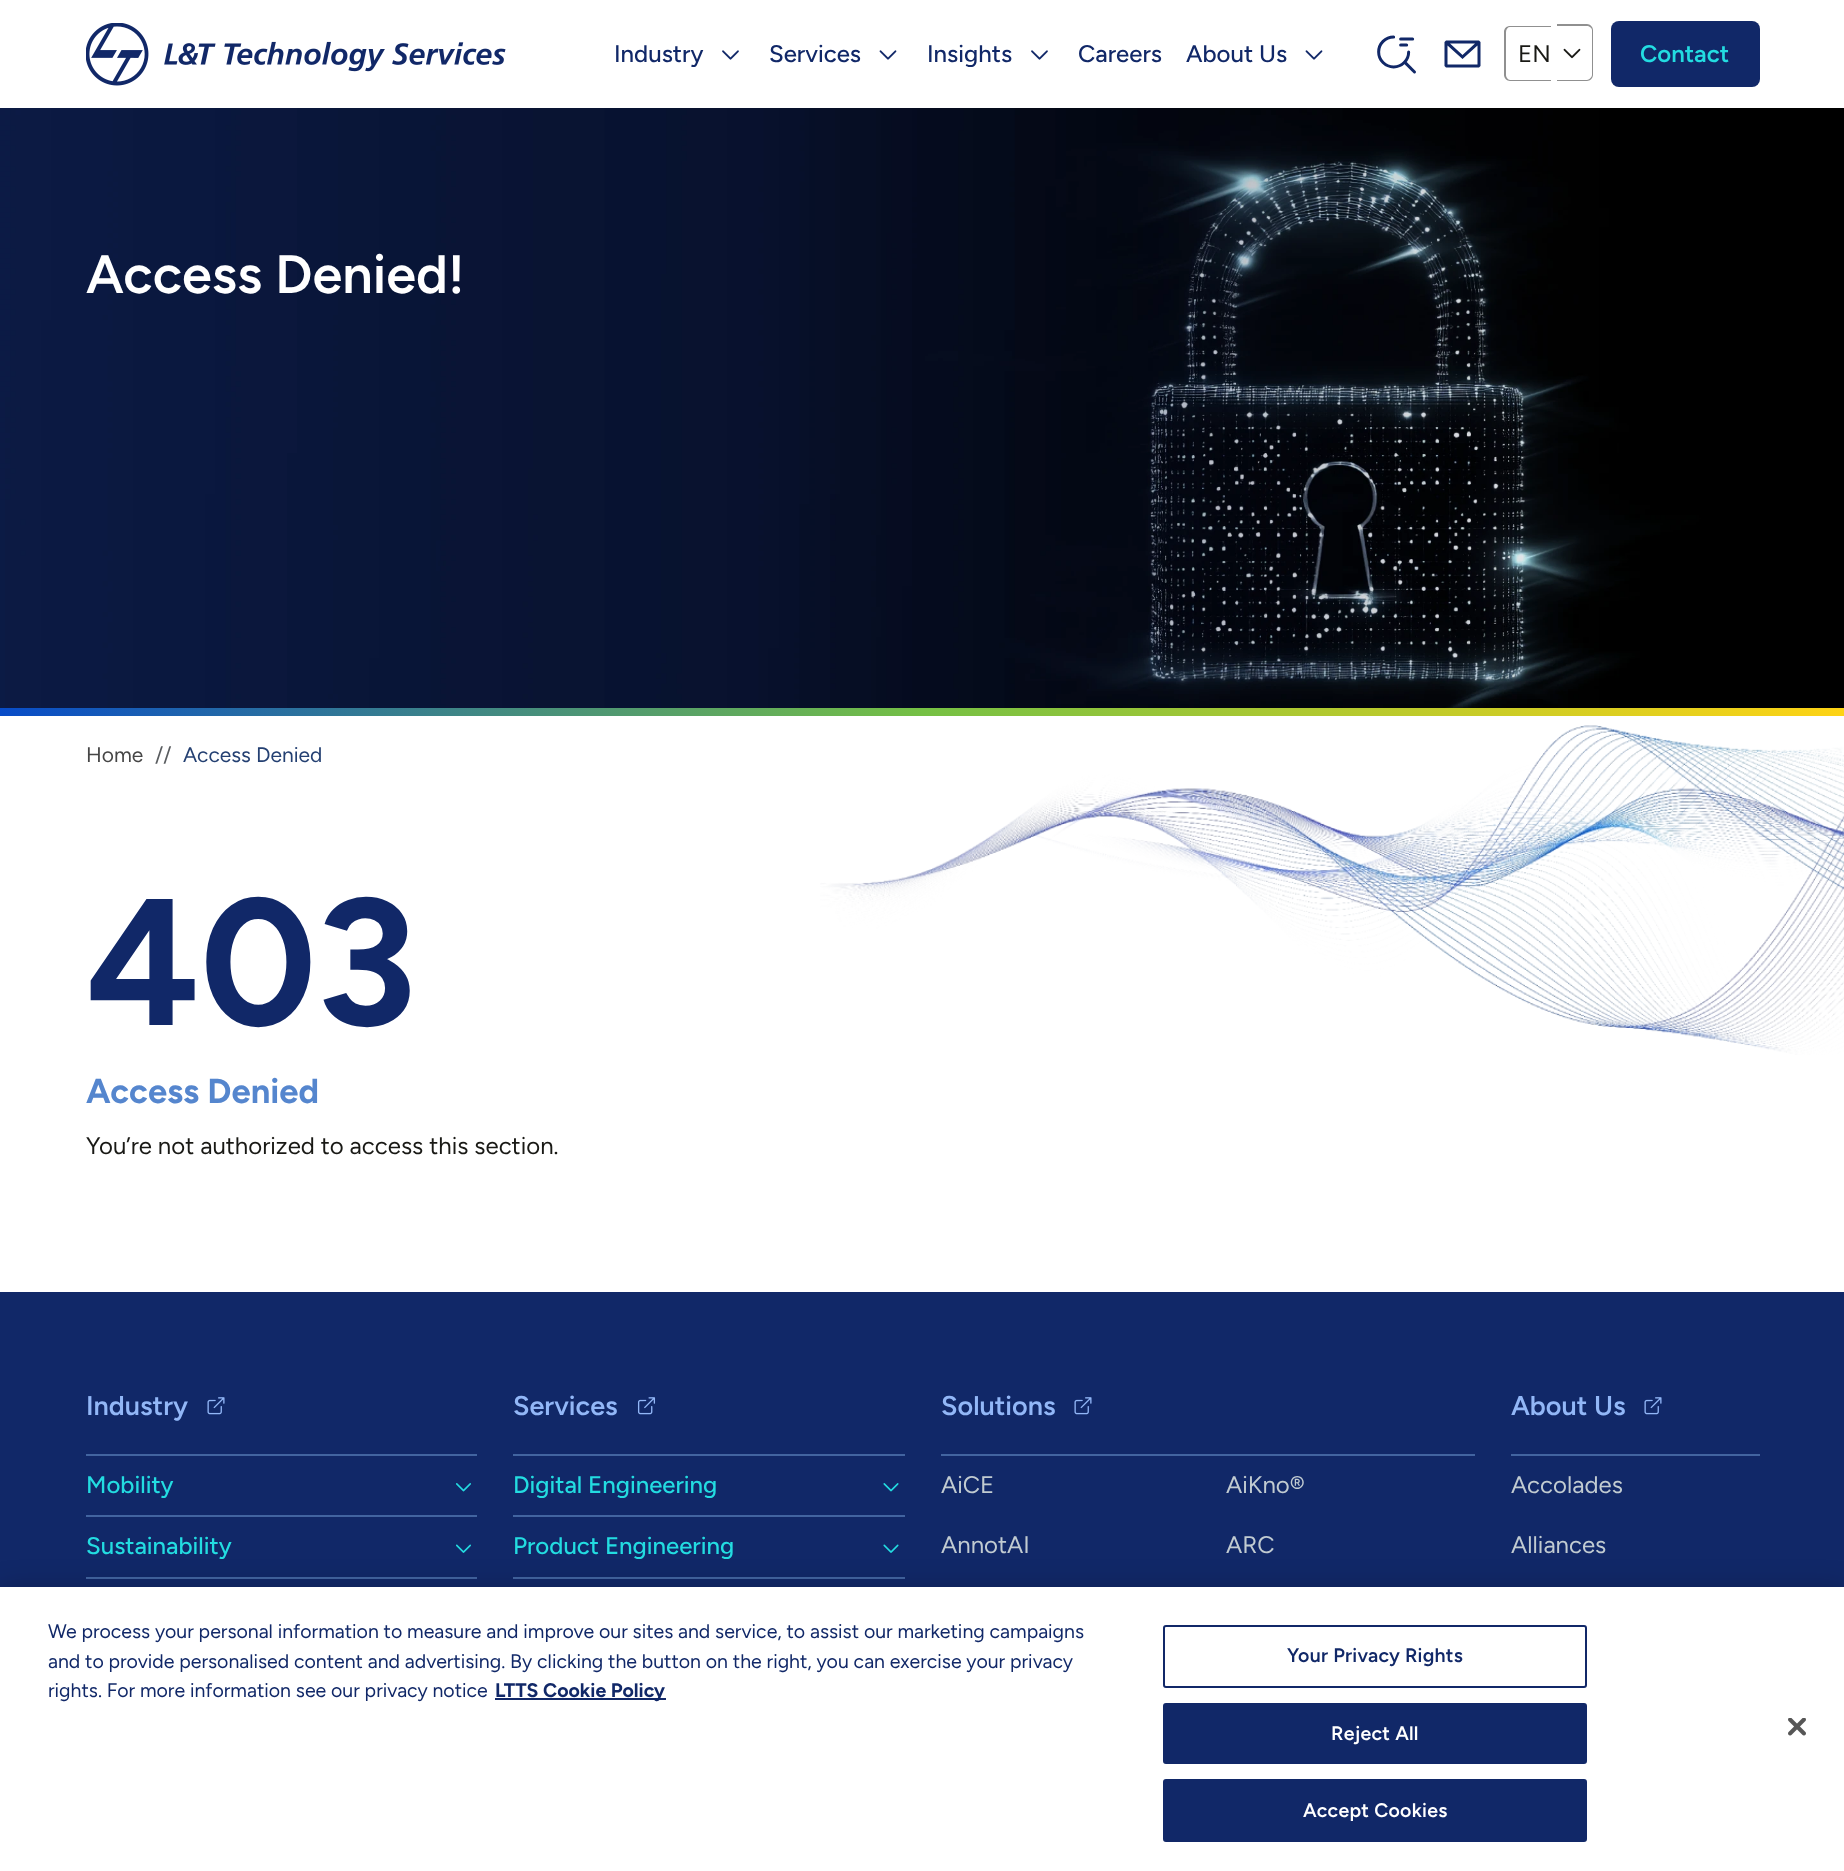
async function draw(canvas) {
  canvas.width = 1844
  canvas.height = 1871
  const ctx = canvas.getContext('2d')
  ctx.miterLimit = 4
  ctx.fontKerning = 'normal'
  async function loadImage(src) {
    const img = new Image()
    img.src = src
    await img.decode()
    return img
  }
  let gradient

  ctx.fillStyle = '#fff'
  ctx.fillRect(0, 0, 1844, 1871)
  ctx.drawImage(await loadImage('image0.png'), 86, 23, 420, 63)
  ctx.font = '500 24px Figtree'
  ctx.fillStyle = '#112868'
  ctx.fillText('Industry', 614, 62)
  ctx.drawImage(await loadImage('image1.png'), 722, 50, 17, 10)
  ctx.fillText('Services', 769, 62)
  ctx.drawImage(await loadImage('image2.png'), 879, 50, 18, 10)
  ctx.fillText('Insights', 927, 62)
  ctx.drawImage(await loadImage('image1.png'), 1031, 50, 17, 10)
  ctx.fillText('Careers', 1078, 62)
  ctx.fillText('About Us', 1186, 62)
  ctx.drawImage(await loadImage('image2.png'), 1305, 50, 18, 10)
  ctx.drawImage(await loadImage('image3.png'), 1377, 35, 39, 39)
  ctx.beginPath()
  ctx.moveTo(1479, 40.5)
  ctx.lineTo(1446, 40.5)
  ctx.lineTo(1444.5, 42)
  ctx.lineTo(1444.5, 66)
  ctx.lineTo(1446, 67.5)
  ctx.lineTo(1479, 67.5)
  ctx.lineTo(1480.5, 66)
  ctx.lineTo(1480.5, 42)
  ctx.closePath()
  ctx.moveTo(1475, 43.5)
  ctx.lineTo(1462.5, 55)
  ctx.lineTo(1450, 43.5)
  ctx.closePath()
  ctx.moveTo(1447.5, 45.5)
  ctx.lineTo(1462.5, 59)
  ctx.lineTo(1477.5, 45.5)
  ctx.lineTo(1477.5, 64.5)
  ctx.lineTo(1447.5, 64.5)
  ctx.closePath()
  ctx.fill('evenodd')
  ctx.fillStyle = '#909090'
  ctx.beginPath()
  ctx.moveTo(1510, 26)
  ctx.lineTo(1551, 26)
  ctx.lineTo(1551, 81)
  ctx.lineTo(1510, 81)
  ctx.bezierCurveTo(1507, 81, 1504, 78, 1504, 75)
  ctx.lineTo(1504, 32)
  ctx.bezierCurveTo(1504, 28, 1507, 26, 1510, 26)
  ctx.closePath()
  ctx.moveTo(1510, 27)
  ctx.lineTo(1551, 27)
  ctx.lineTo(1551, 80)
  ctx.lineTo(1510, 80)
  ctx.bezierCurveTo(1508, 80, 1506, 77, 1506, 75)
  ctx.lineTo(1506, 32)
  ctx.bezierCurveTo(1506, 29, 1508, 27, 1510, 27)
  ctx.closePath()
  ctx.fill('evenodd')
  ctx.font = '24px Figtree'
  ctx.fillStyle = '#191915'
  ctx.fillText('EN', 1518, 62)
  ctx.fillStyle = '#909090'
  ctx.beginPath()
  ctx.moveTo(1557, 24)
  ctx.lineTo(1587, 24)
  ctx.bezierCurveTo(1590, 24, 1593, 27, 1593, 30)
  ctx.lineTo(1593, 75)
  ctx.bezierCurveTo(1593, 78, 1590, 81, 1587, 81)
  ctx.lineTo(1557, 81)
  ctx.closePath()
  ctx.moveTo(1557, 26)
  ctx.lineTo(1587, 26)
  ctx.bezierCurveTo(1589, 26, 1592, 28, 1592, 30)
  ctx.lineTo(1592, 75)
  ctx.bezierCurveTo(1592, 77, 1589, 80, 1587, 80)
  ctx.lineTo(1557, 80)
  ctx.closePath()
  ctx.fill('evenodd')
  ctx.drawImage(await loadImage('image4.png'), 1563, 48, 18, 11)
  ctx.fillStyle = '#112868'
  ctx.beginPath()
  ctx.roundRect(1611, 21, 149, 66, 8)
  ctx.fill()
  ctx.font = '600 24px Figtree'
  ctx.fillStyle = '#23dce1'
  ctx.fillText('Contact', 1640, 62)
  ctx.drawImage(await loadImage('image5.png'), 0, 108, 1844, 600)
  ctx.font = '600 54px Figtree'
  ctx.fillStyle = '#fff'
  ctx.fillText('Access Denied!', 86, 293)
  gradient = ctx.createLinearGradient(0, 712, 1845, 712)
  gradient.addColorStop(0, '#084cc8')
  gradient.addColorStop(0.5, '#75c044')
  gradient.addColorStop(1, '#fed314')
  ctx.fillStyle = gradient
  ctx.fillRect(0, 708, 1844, 8)
  ctx.font = '21px Figtree'
  ctx.fillStyle = '#464646'
  ctx.fillText('Home', 86, 762)
  ctx.fillStyle = '#595c5f'
  ctx.fillText('//', 155, 762)
  ctx.fillStyle = '#244072'
  ctx.fillText('Access Denied', 183, 762)
  ctx.font = 'bold 180px Figtree'
  ctx.fillStyle = '#112868'
  ctx.fillText('403', 86, 1025)
  ctx.font = 'bold 34.5px Figtree'
  ctx.fillStyle = '#5586ce'
  ctx.fillText('Access Denied', 86, 1103)
  ctx.font = '24px Figtree'
  ctx.fillStyle = '#191915'
  ctx.fillText('You’re not authorized to access this section.', 86, 1154)
  ctx.drawImage(await loadImage('image6.png'), 820, 725, 1024, 330)
  ctx.fillStyle = '#112868'
  ctx.fillRect(0, 1292, 1844, 295)
  ctx.font = '600 27px Figtree'
  ctx.fillStyle = '#92b7f7'
  ctx.fillText('Industry', 86, 1415)
  ctx.drawImage(await loadImage('image7.png'), 207, 1397, 18, 18)
  ctx.fillStyle = '#4264a0'
  ctx.fillRect(86, 1454, 391, 2)
  ctx.fillRect(86, 1515, 391, 2)
  ctx.font = '500 24px Figtree'
  ctx.fillStyle = '#23dce1'
  ctx.fillText('Mobility', 86, 1493)
  ctx.drawImage(await loadImage('image8.png'), 456, 1483, 15, 9)
  ctx.fillStyle = '#4264a0'
  ctx.fillRect(86, 1577, 391, 2)
  ctx.fillStyle = '#23dce1'
  ctx.fillText('Sustainability', 86, 1554)
  ctx.drawImage(await loadImage('image9.png'), 456, 1544, 15, 9)
  ctx.font = '600 27px Figtree'
  ctx.fillStyle = '#92b7f7'
  ctx.fillText('Services', 513, 1415)
  ctx.drawImage(await loadImage('image10.png'), 637, 1397, 19, 18)
  ctx.fillStyle = '#4264a0'
  ctx.fillRect(513, 1454, 392, 2)
  ctx.fillRect(513, 1515, 392, 2)
  ctx.font = '500 24px Figtree'
  ctx.fillStyle = '#23dce1'
  ctx.fillText('Digital Engineering', 513, 1493)
  ctx.drawImage(await loadImage('image11.png'), 883, 1483, 16, 9)
  ctx.fillStyle = '#4264a0'
  ctx.fillRect(513, 1577, 392, 2)
  ctx.fillStyle = '#23dce1'
  ctx.fillText('Product Engineering', 513, 1554)
  ctx.drawImage(await loadImage('image12.png'), 883, 1544, 16, 9)
  ctx.font = '600 27px Figtree'
  ctx.fillStyle = '#92b7f7'
  ctx.fillText('Solutions', 941, 1415)
  ctx.drawImage(await loadImage('image7.png'), 1074, 1397, 18, 18)
  ctx.fillStyle = '#4264a0'
  ctx.fillRect(941, 1454, 534, 2)
  ctx.font = '24px Figtree'
  ctx.fillStyle = '#c1cbd1'
  ctx.fillText('AiCE', 941, 1493)
  ctx.fillText('AiKno®', 1226, 1493)
  ctx.fillText('AnnotAI', 941, 1553)
  ctx.fillText('ARC', 1226, 1553)
  ctx.font = '600 27px Figtree'
  ctx.fillStyle = '#92b7f7'
  ctx.fillText('About Us', 1511, 1415)
  ctx.drawImage(await loadImage('image7.png'), 1644, 1397, 18, 18)
  ctx.fillStyle = '#4264a0'
  ctx.fillRect(1511, 1454, 249, 2)
  ctx.font = '24px Figtree'
  ctx.fillStyle = '#c1cbd1'
  ctx.fillText('Accolades', 1511, 1493)
  ctx.fillText('Alliances', 1511, 1553)
  ctx.fillStyle = '#00000033'
  ctx.filter = 'blur(13.5px)'
  ctx.beginPath()
  ctx.rect(0, 1587, 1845, 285)
  ctx.fill()
  ctx.filter = 'none'
  ctx.fillStyle = '#fff'
  ctx.fillRect(0, 1587, 1844, 284)
  ctx.font = '19.5px Figtree'
  ctx.fillStyle = '#112868'
  ctx.fillText('We process your personal information to measure and improve our sites and service, to assist our marketing campaigns', 48, 1638)
  ctx.fillText('and to provide personalised content and advertising. By clicking the button on the right, you can exercise your privacy', 48, 1668)
  ctx.fillText('rights. For more information see our privacy notice', 48, 1697)
  ctx.fillRect(495, 1698, 171, 2)
  ctx.font = 'bold 19.5px Figtree'
  ctx.fillText('LTTS Cookie Policy', 495, 1697)
  ctx.beginPath()
  ctx.roundRect(1164, 1626, 422, 61, 2)
  ctx.strokeStyle = '#112868'
  ctx.lineWidth = 2
  ctx.stroke()
  ctx.letterSpacing = '0.25px'
  ctx.font = '600 19.5px Figtree'
  ctx.fillText('Your Privacy Rights', 1287, 1662)
  ctx.beginPath()
  ctx.roundRect(1164, 1704, 422, 59, 2)
  ctx.fill()
  ctx.stroke()
  ctx.fillStyle = '#fff'
  ctx.fillText('Reject All', 1331, 1740)
  ctx.fillStyle = '#112868'
  ctx.beginPath()
  ctx.roundRect(1164, 1780, 422, 61, 2)
  ctx.fill()
  ctx.stroke()
  ctx.fillStyle = '#fff'
  ctx.fillText('Accept Cookies', 1303, 1817)
  ctx.drawImage(await loadImage('image13.png'), 1788, 1718, 18, 18)
}

draw(document.querySelector('canvas'))
